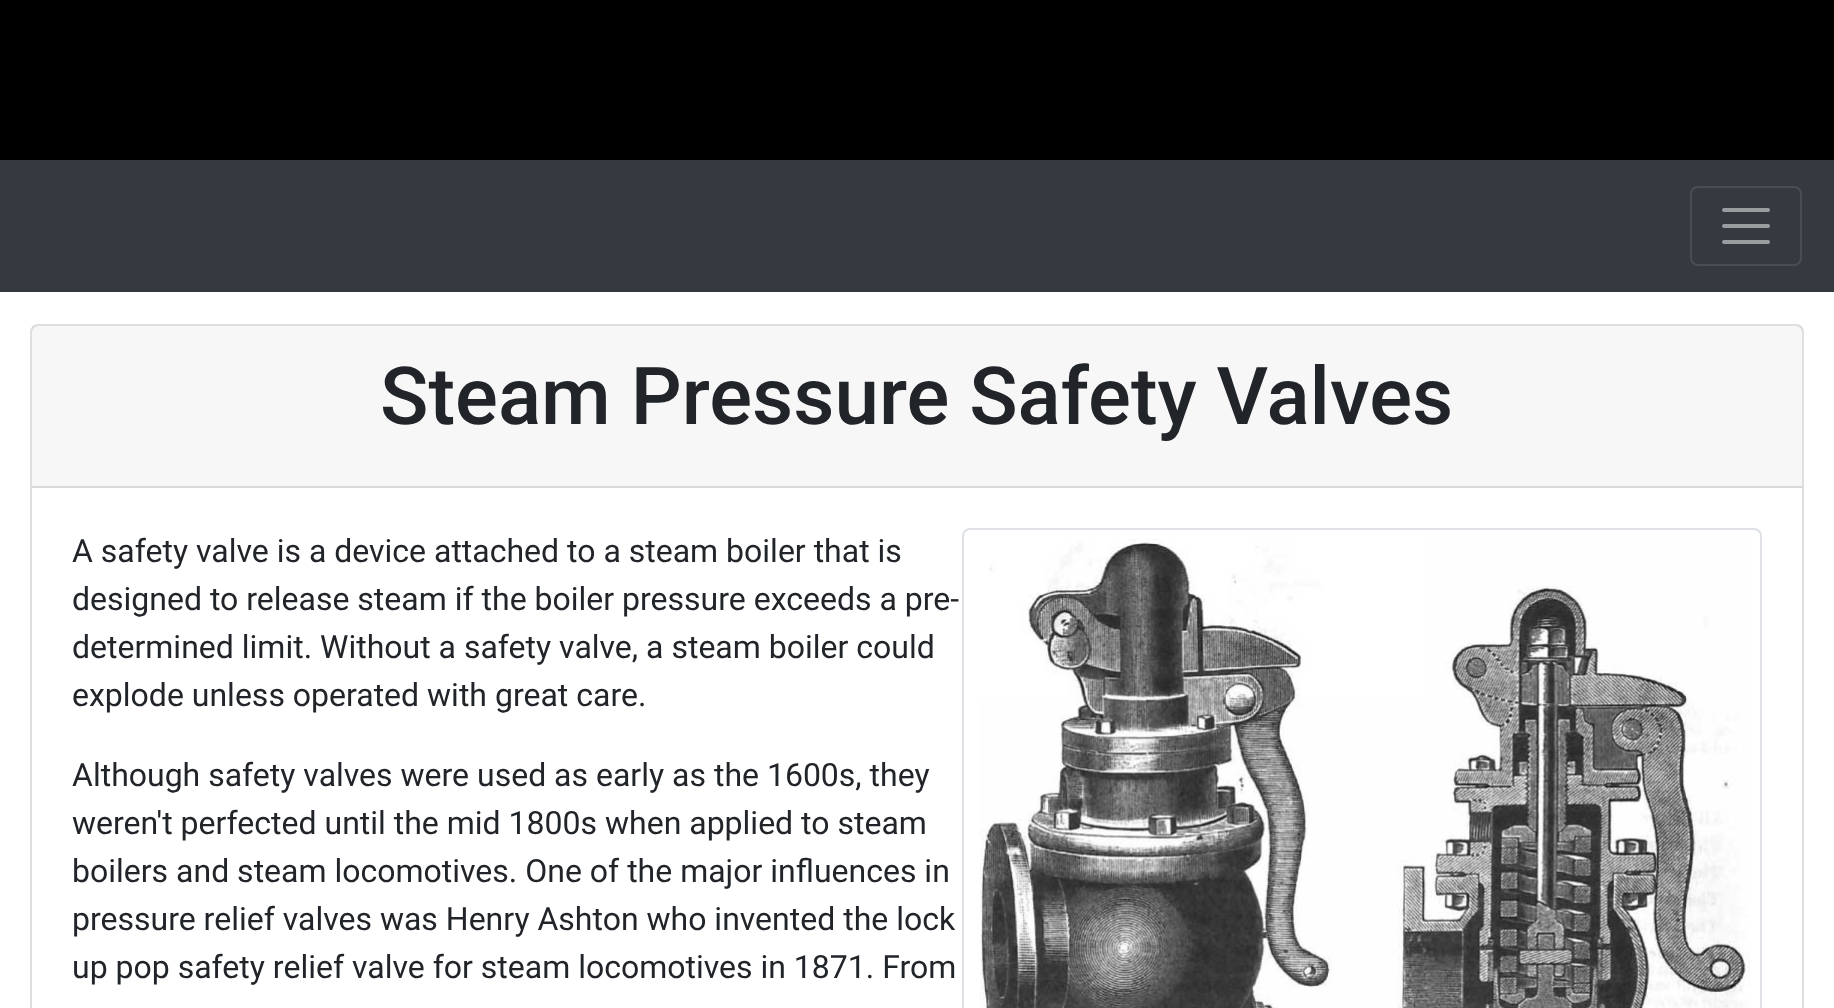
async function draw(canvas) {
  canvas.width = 1834
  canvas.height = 1008
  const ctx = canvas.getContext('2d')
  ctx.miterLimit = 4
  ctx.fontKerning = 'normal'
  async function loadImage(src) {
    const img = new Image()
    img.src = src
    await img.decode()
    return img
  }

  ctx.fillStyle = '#fff'
  ctx.fillRect(0, 0, 1834, 1008)
  ctx.fillStyle = '#000'
  ctx.fillRect(0, 0, 1834, 160)
  ctx.fillStyle = '#343a40'
  ctx.fillRect(0, 160, 1834, 132)
  ctx.beginPath()
  ctx.roundRect(1691, 187, 110, 78, 7)
  ctx.strokeStyle = '#484e53'
  ctx.lineWidth = 2
  ctx.stroke()
  ctx.beginPath()
  ctx.moveTo(1724, 210)
  ctx.lineTo(1768, 210)
  ctx.moveTo(1724, 226)
  ctx.lineTo(1768, 226)
  ctx.moveTo(1724, 242)
  ctx.lineTo(1768, 242)
  ctx.strokeStyle = '#9a9da0'
  ctx.lineWidth = 4
  ctx.lineCap = 'round'
  ctx.stroke()
  ctx.beginPath()
  ctx.roundRect(31, 325, 1772, 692, 7)
  ctx.strokeStyle = '#dfdfdf'
  ctx.lineWidth = 2
  ctx.stroke()
  ctx.fillStyle = '#00000008'
  ctx.fillRect(32, 326, 1770, 160)
  ctx.fillStyle = '#d8d8d8'
  ctx.fillRect(32, 486, 1770, 2)
  ctx.font = '500 80px Roboto'
  ctx.fillStyle = '#212529'
  ctx.fillText('Steam Pressure Safety Valves', 380, 424)
  ctx.font = '32px Roboto'
  ctx.fillText('A safety valve is a device attached to a steam boiler that is', 72, 562)
  ctx.fillText('designed to release steam if the boiler pressure exceeds a pre-', 72, 610)
  ctx.fillText('determined limit. Without a safety valve, a steam boiler could', 72, 658)
  ctx.fillText('explode unless operated with great care.', 72, 706)
  ctx.beginPath()
  ctx.roundRect(963, 529, 798, 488, 7)
  ctx.strokeStyle = '#dee2e6'
  ctx.stroke()
  ctx.drawImage(await loadImage('image0.png'), 980, 538, 770, 470)
  ctx.fillText('Although safety valves were used as early as the 1600s, they', 72, 786)
  ctx.fillText('weren\'t perfected until the mid 1800s when applied to steam', 72, 834)
  ctx.fillText('boilers and steam locomotives. One of the major influences in', 72, 882)
  ctx.fillText('pressure relief valves was Henry Ashton who invented the lock', 72, 930)
  ctx.fillText('up pop safety relief valve for steam locomotives in 1871. From', 72, 978)
}

draw(document.querySelector('canvas'))
